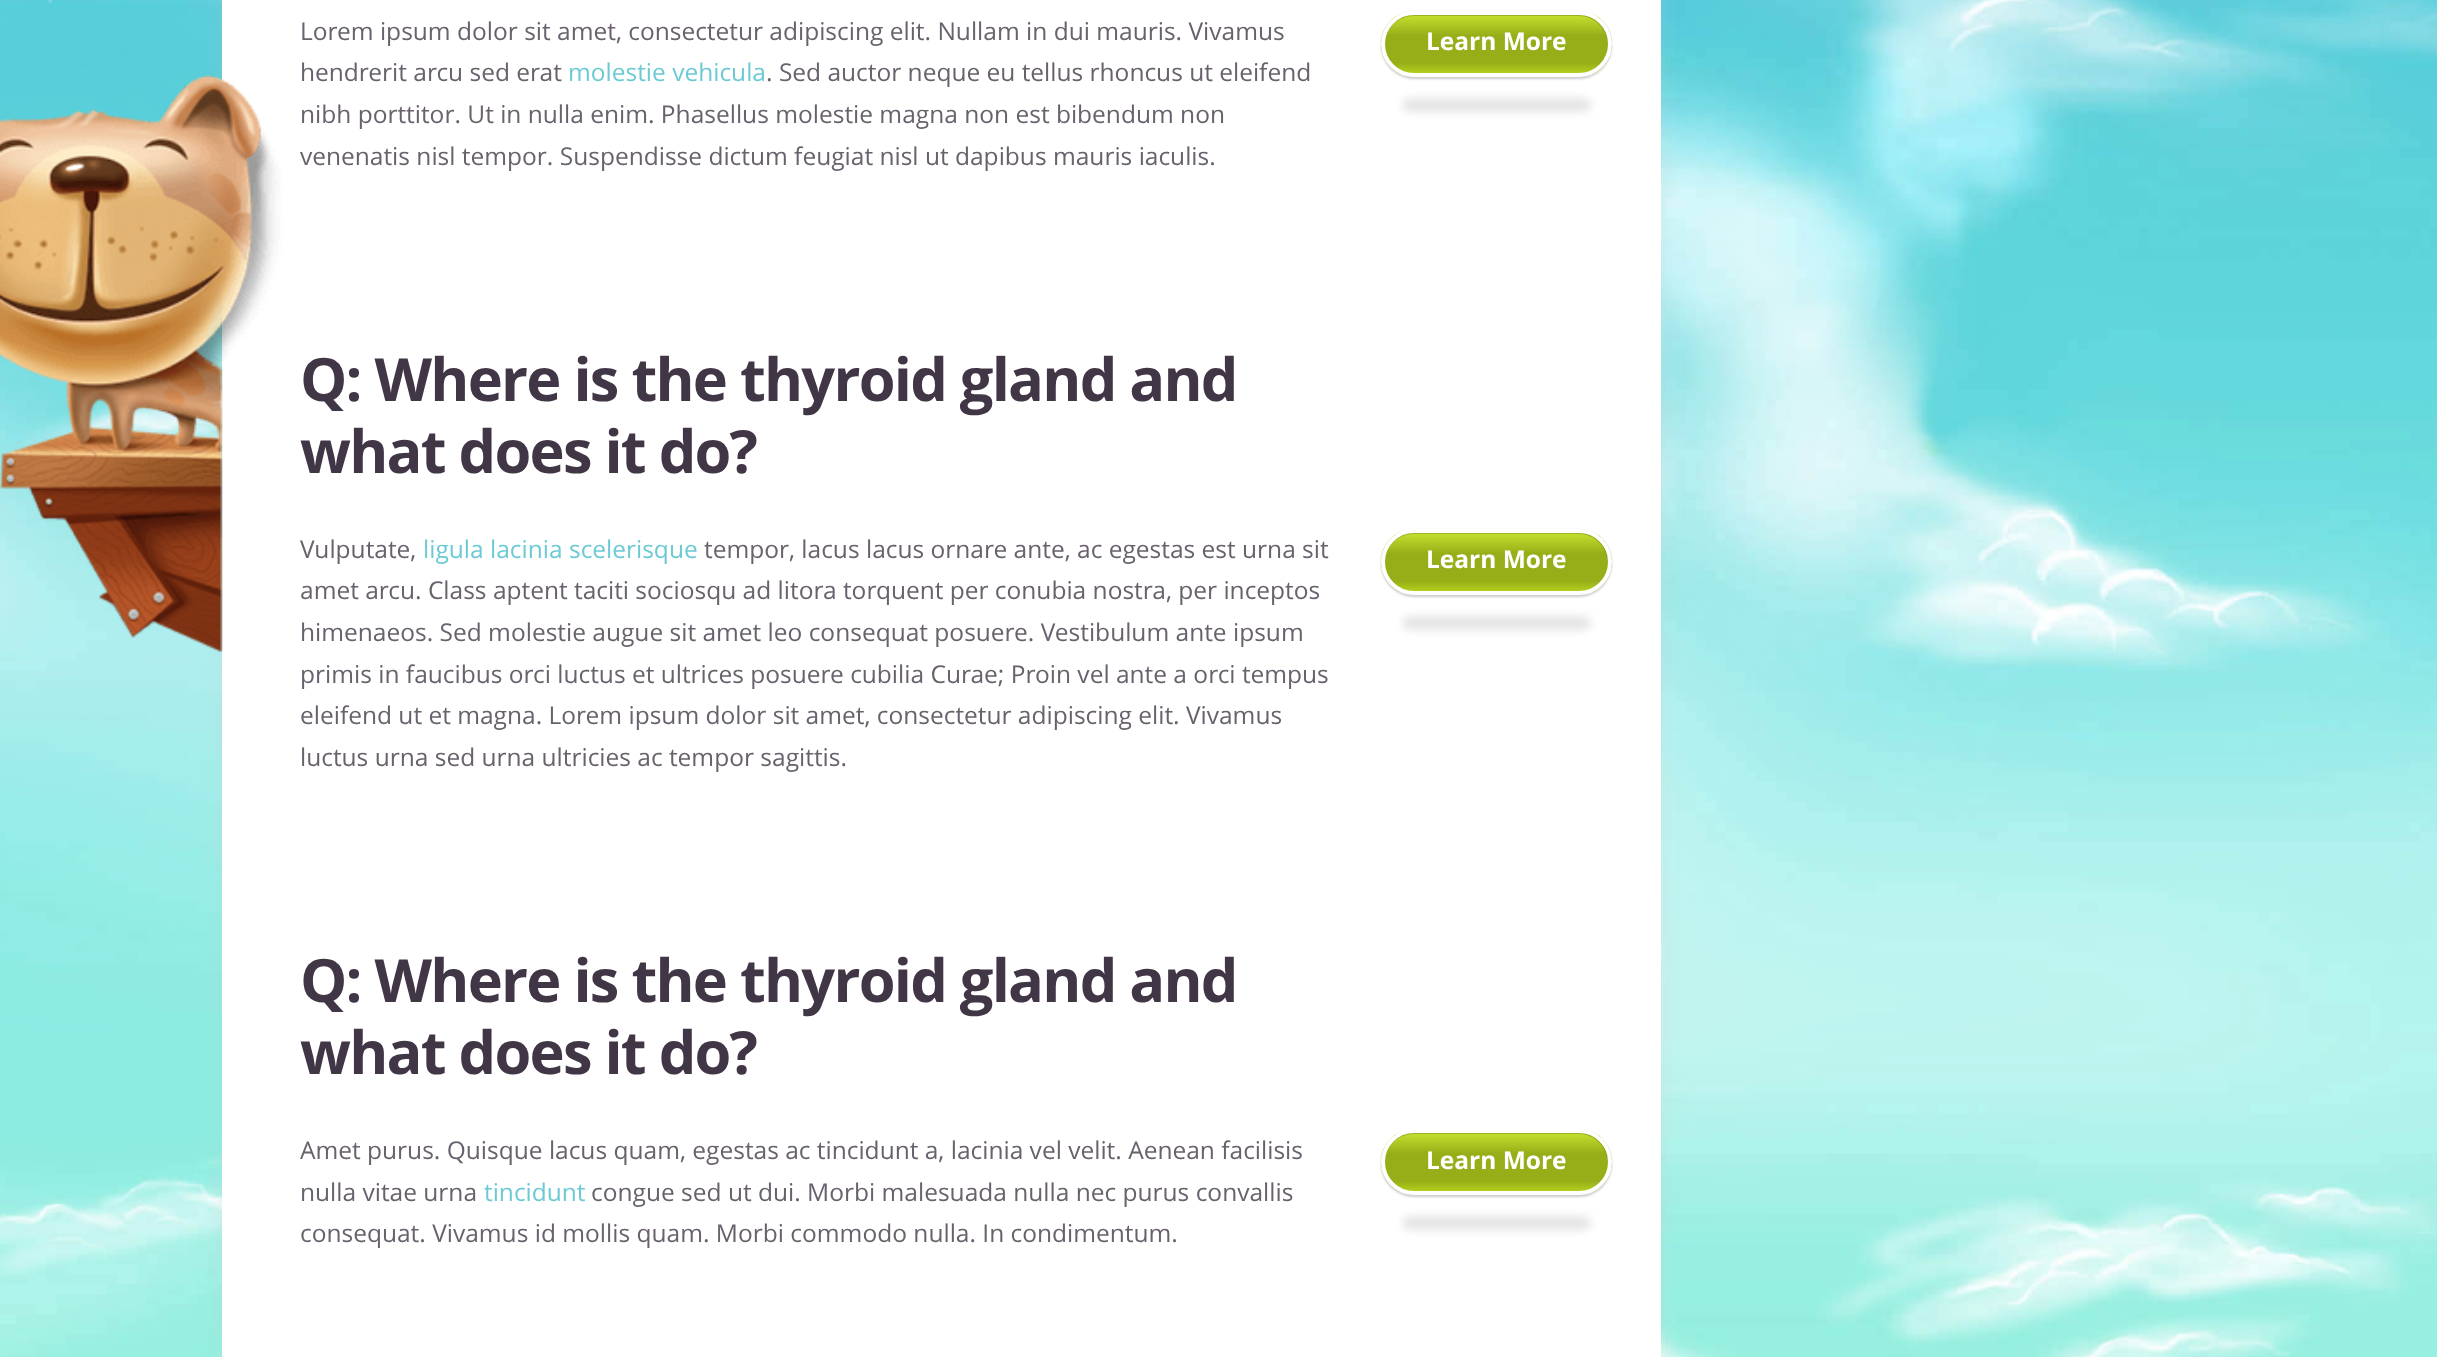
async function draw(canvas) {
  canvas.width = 2437
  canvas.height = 1357
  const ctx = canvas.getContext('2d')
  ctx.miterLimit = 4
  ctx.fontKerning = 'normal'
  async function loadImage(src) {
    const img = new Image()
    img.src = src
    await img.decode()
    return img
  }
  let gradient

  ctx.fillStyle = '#fff'
  ctx.fillRect(0, 0, 2437, 1357)
  ctx.drawImage(await loadImage('image0.png'), 0, 0, 2437, 1357)
  ctx.drawImage(await loadImage('image1.png'), 0, 0, 54, 72)
  ctx.fillStyle = '#d1c3c536'
  ctx.filter = 'blur(10.5px)'
  ctx.beginPath()
  ctx.roundRect(222, -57, 1439, 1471, 25)
  ctx.fill()
  ctx.filter = 'none'
  ctx.fillStyle = '#fff'
  ctx.fillRect(222, 0, 1439, 1357)
  ctx.drawImage(await loadImage('image2.png'), 0, 75, 283, 577)
  ctx.font = '24.5px Open Sans'
  ctx.fillStyle = '#69616c'
  ctx.fillText('Lorem ipsum dolor sit amet, consectetur adipiscing elit. Nullam in dui mauris. Vivamus', 300, 40)
  ctx.fillText('hendrerit arcu sed erat', 300, 81)
  ctx.fillStyle = '#6ccad5'
  ctx.fillText('molestie vehicula', 568, 81)
  ctx.fillStyle = '#69616c'
  ctx.fillText('. Sed auctor neque eu tellus rhoncus ut eleifend', 766, 81)
  ctx.fillText('nibh porttitor. Ut in nulla enim. Phasellus molestie magna non est bibendum non', 300, 123)
  ctx.fillText('venenatis nisl tempor. Suspendisse dictum feugiat nisl ut dapibus mauris iaculis.', 300, 165)
  ctx.fillStyle = '#00000033'
  ctx.filter = 'blur(1px)'
  ctx.beginPath()
  ctx.roundRect(1381, 12, 231, 67, 33.5)
  ctx.fill()
  ctx.filter = 'none'
  ctx.save()
  ctx.beginPath()
  ctx.roundRect(1381, 11, 231, 66, 33)
  ctx.clip()
  gradient = ctx.createLinearGradient(1496, 14, 1496, 74)
  gradient.addColorStop(0, '#c8e230')
  gradient.addColorStop(0.36, '#98ae18')
  gradient.addColorStop(0.82, '#98ae18')
  gradient.addColorStop(1, '#b7d21d')
  ctx.fillStyle = gradient
  ctx.fillRect(1381, 14, 231, 60)
  ctx.restore()
  ctx.beginPath()
  ctx.moveTo(1414, 16)
  ctx.lineTo(1578, 16)
  ctx.bezierCurveTo(1595, 16, 1607, 28, 1608, 45)
  ctx.lineTo(1608, 44)
  ctx.bezierCurveTo(1608, 27, 1595, 14, 1578, 14)
  ctx.lineTo(1414, 14)
  ctx.bezierCurveTo(1397, 14, 1384, 27, 1384, 44)
  ctx.lineTo(1384, 45)
  ctx.bezierCurveTo(1385, 28, 1398, 16, 1414, 16)
  ctx.closePath()
  ctx.fill()
  ctx.beginPath()
  ctx.roundRect(1383, 13, 227, 62, 31)
  ctx.strokeStyle = '#fff'
  ctx.lineWidth = 4
  ctx.stroke()
  ctx.font = 'bold 24.5px Open Sans'
  ctx.fillStyle = '#fff'
  ctx.fillText('Learn More', 1426, 50)
  ctx.fillStyle = '#0000001a'
  ctx.filter = 'blur(4.5px)'
  ctx.beginPath()
  ctx.roundRect(1402, 98, 189, 14, 7)
  ctx.fill()
  ctx.filter = 'none'
  ctx.letterSpacing = '-1.75px'
  ctx.font = 'bold 59.5px Open Sans'
  ctx.fillStyle = '#413645'
  ctx.fillText('Q: Where is the thyroid gland and', 300, 401)
  ctx.fillText('what does it do?', 300, 473)
  ctx.letterSpacing = '0px'
  ctx.font = '24.5px Open Sans'
  ctx.fillStyle = '#69616c'
  ctx.fillText('Vulputate,', 300, 558)
  ctx.fillStyle = '#6ccad5'
  ctx.fillText('ligula lacinia scelerisque', 423, 558)
  ctx.fillStyle = '#69616c'
  ctx.fillText('tempor, lacus lacus ornare ante, ac egestas est urna sit', 704, 558)
  ctx.fillText('amet arcu. Class aptent taciti sociosqu ad litora torquent per conubia nostra, per inceptos', 300, 599)
  ctx.fillText('himenaeos. Sed molestie augue sit amet leo consequat posuere. Vestibulum ante ipsum', 300, 641)
  ctx.fillText('primis in faucibus orci luctus et ultrices posuere cubilia Curae; Proin vel ante a orci tempus', 300, 683)
  ctx.fillText('eleifend ut et magna. Lorem ipsum dolor sit amet, consectetur adipiscing elit. Vivamus', 300, 724)
  ctx.fillText('luctus urna sed urna ultricies ac tempor sagittis.', 300, 766)
  ctx.fillStyle = '#00000033'
  ctx.filter = 'blur(1px)'
  ctx.beginPath()
  ctx.roundRect(1381, 530, 231, 67, 33.5)
  ctx.fill()
  ctx.filter = 'none'
  ctx.save()
  ctx.beginPath()
  ctx.roundRect(1381, 529, 231, 66, 33)
  ctx.clip()
  gradient = ctx.createLinearGradient(1496, 532, 1496, 592)
  gradient.addColorStop(0, '#c8e230')
  gradient.addColorStop(0.36, '#98ae18')
  gradient.addColorStop(0.82, '#98ae18')
  gradient.addColorStop(1, '#b7d21d')
  ctx.fillStyle = gradient
  ctx.fillRect(1381, 532, 231, 60)
  ctx.restore()
  ctx.beginPath()
  ctx.moveTo(1414, 534)
  ctx.lineTo(1578, 534)
  ctx.bezierCurveTo(1595, 534, 1607, 546, 1608, 563)
  ctx.lineTo(1608, 562)
  ctx.bezierCurveTo(1608, 545, 1595, 532, 1578, 532)
  ctx.lineTo(1414, 532)
  ctx.bezierCurveTo(1397, 532, 1384, 545, 1384, 562)
  ctx.lineTo(1384, 563)
  ctx.bezierCurveTo(1385, 546, 1398, 534, 1414, 534)
  ctx.closePath()
  ctx.fill()
  ctx.beginPath()
  ctx.roundRect(1383, 531, 227, 62, 31)
  ctx.stroke()
  ctx.font = 'bold 24.5px Open Sans'
  ctx.fillStyle = '#fff'
  ctx.fillText('Learn More', 1426, 568)
  ctx.fillStyle = '#0000001a'
  ctx.filter = 'blur(4.5px)'
  ctx.beginPath()
  ctx.roundRect(1402, 616, 189, 14, 7)
  ctx.fill()
  ctx.filter = 'none'
  ctx.letterSpacing = '-1.75px'
  ctx.font = 'bold 59.5px Open Sans'
  ctx.fillStyle = '#413645'
  ctx.fillText('Q: Where is the thyroid gland and', 300, 1002)
  ctx.fillText('what does it do?', 300, 1074)
  ctx.letterSpacing = '0px'
  ctx.font = '24.5px Open Sans'
  ctx.fillStyle = '#69616c'
  ctx.fillText('Amet purus. Quisque lacus quam, egestas ac tincidunt a, lacinia vel velit. Aenean facilisis', 300, 1159)
  ctx.fillText('nulla vitae urna', 300, 1201)
  ctx.fillStyle = '#6ccad5'
  ctx.fillText('tincidunt', 484, 1201)
  ctx.fillStyle = '#69616c'
  ctx.fillText('congue sed ut dui. Morbi malesuada nulla nec purus convallis', 591, 1201)
  ctx.fillText('consequat. Vivamus id mollis quam. Morbi commodo nulla. In condimentum.', 300, 1242)
  ctx.fillStyle = '#00000033'
  ctx.filter = 'blur(1px)'
  ctx.beginPath()
  ctx.roundRect(1381, 1131, 231, 66, 33)
  ctx.fill()
  ctx.filter = 'none'
  ctx.save()
  ctx.beginPath()
  ctx.roundRect(1381, 1129, 231, 66, 33)
  ctx.clip()
  gradient = ctx.createLinearGradient(1496, 1132, 1496, 1192)
  gradient.addColorStop(0, '#c8e230')
  gradient.addColorStop(0.36, '#98ae18')
  gradient.addColorStop(0.82, '#98ae18')
  gradient.addColorStop(1, '#b7d21d')
  ctx.fillStyle = gradient
  ctx.fillRect(1381, 1132, 231, 60)
  ctx.restore()
  ctx.beginPath()
  ctx.moveTo(1414, 1134)
  ctx.lineTo(1578, 1134)
  ctx.bezierCurveTo(1595, 1134, 1607, 1146, 1608, 1163)
  ctx.lineTo(1608, 1162)
  ctx.bezierCurveTo(1608, 1145, 1595, 1132, 1578, 1132)
  ctx.lineTo(1414, 1132)
  ctx.bezierCurveTo(1397, 1132, 1384, 1145, 1384, 1162)
  ctx.lineTo(1384, 1163)
  ctx.bezierCurveTo(1385, 1146, 1398, 1134, 1414, 1134)
  ctx.closePath()
  ctx.fill()
  ctx.beginPath()
  ctx.roundRect(1383, 1131, 227, 62, 31)
  ctx.stroke()
  ctx.font = 'bold 24.5px Open Sans'
  ctx.fillStyle = '#fff'
  ctx.fillText('Learn More', 1426, 1169)
  ctx.fillStyle = '#0000001a'
  ctx.filter = 'blur(4.5px)'
  ctx.beginPath()
  ctx.roundRect(1402, 1216, 189, 14, 7)
  ctx.fill()
  ctx.filter = 'none'
}

draw(document.querySelector('canvas'))
